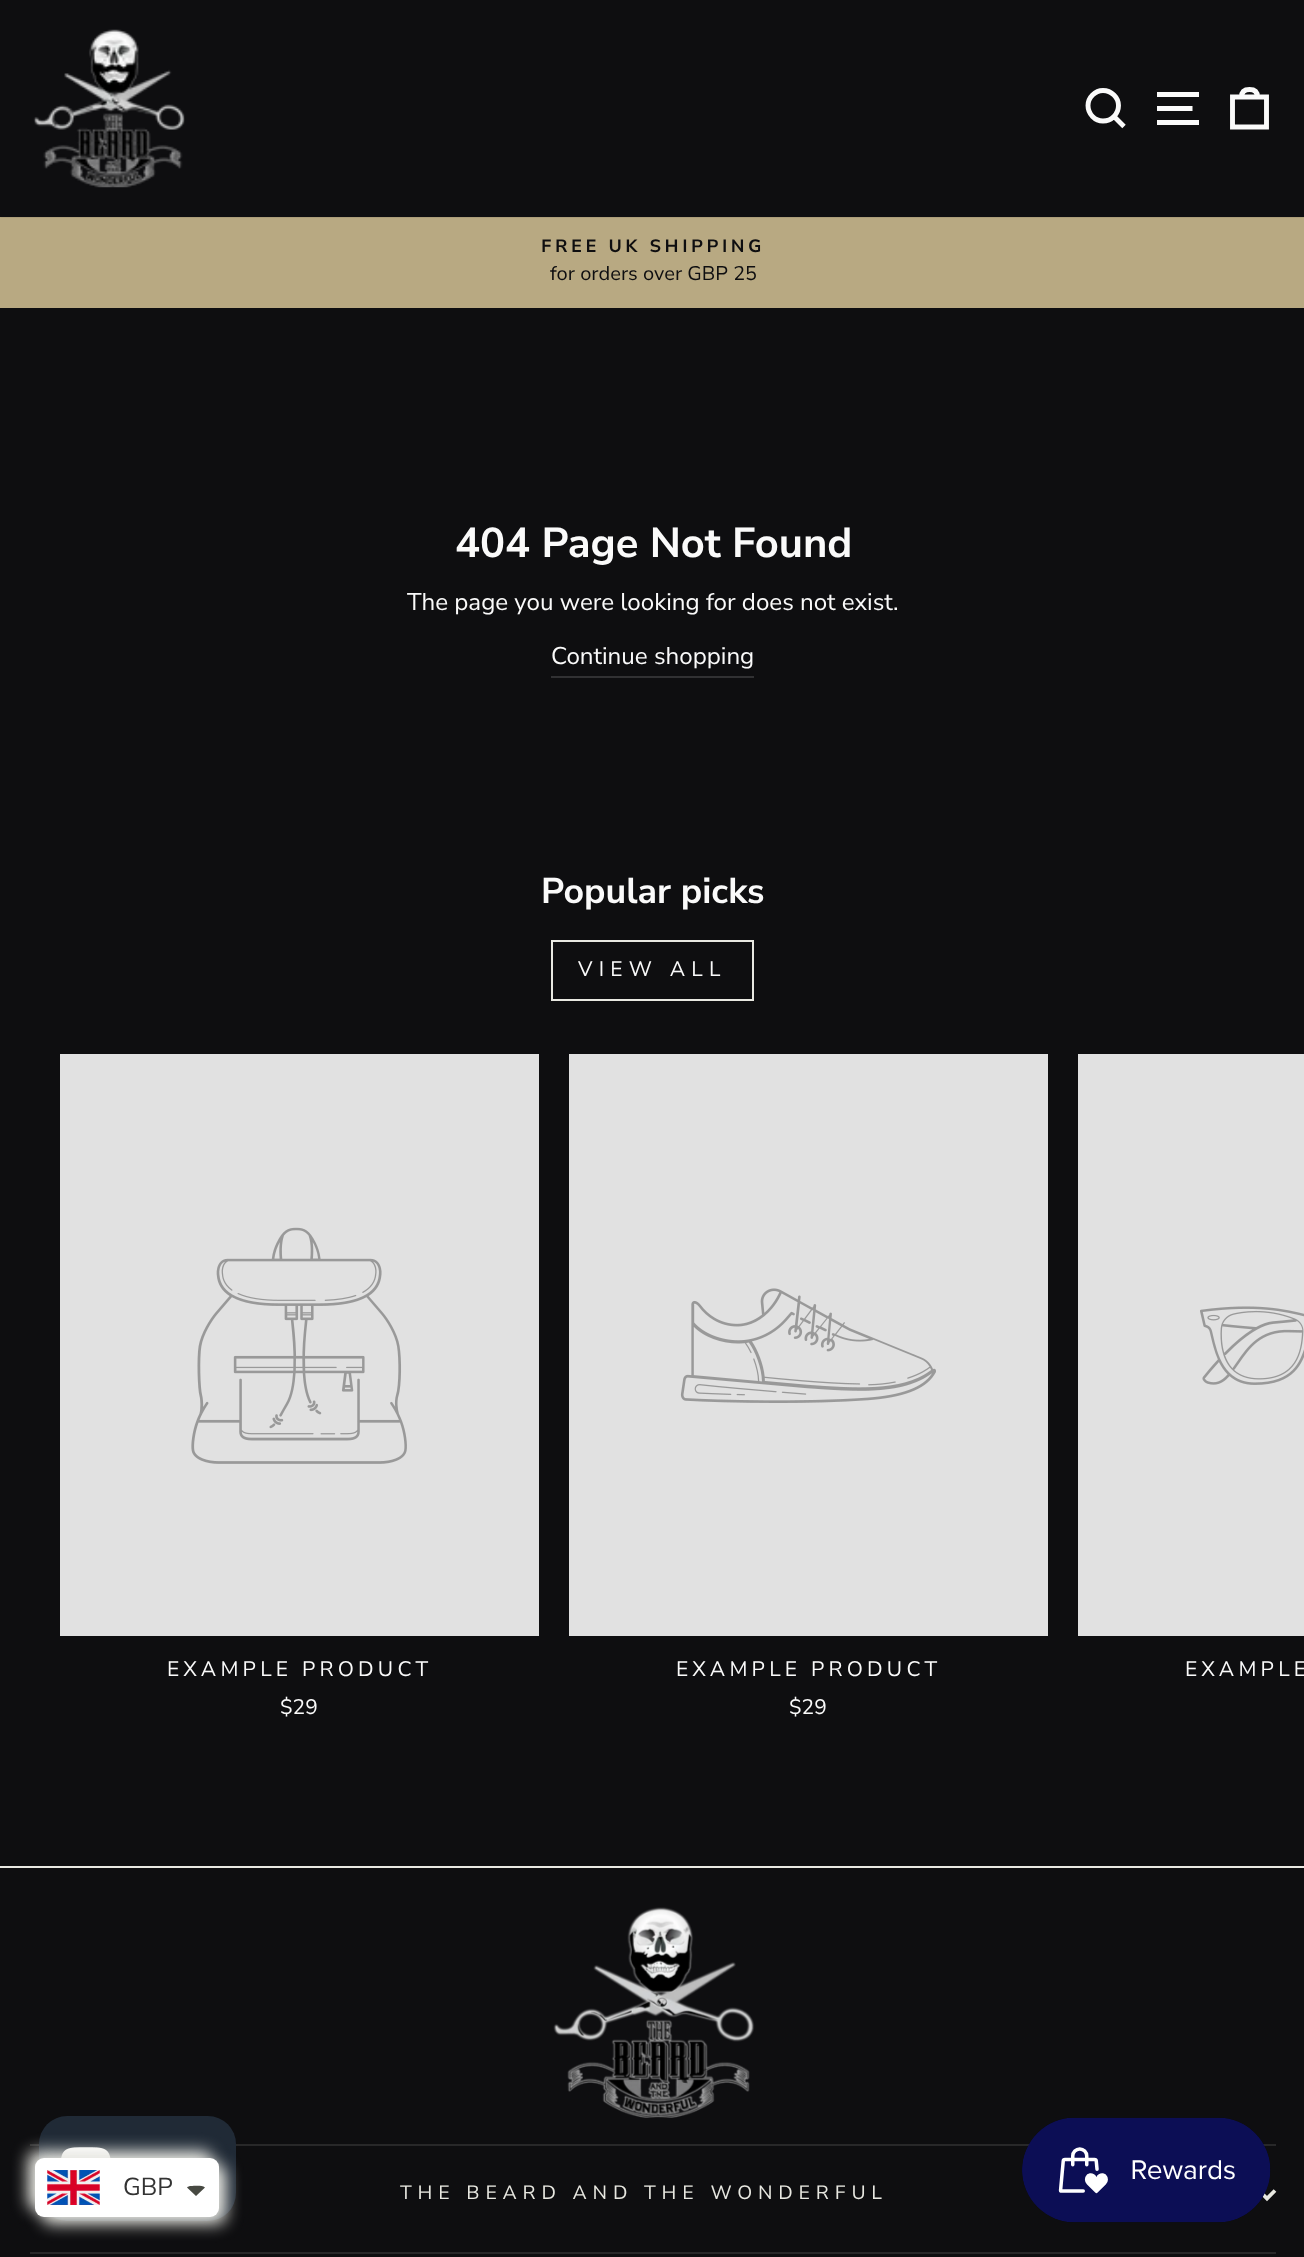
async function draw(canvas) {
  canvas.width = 1304
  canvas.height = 2257
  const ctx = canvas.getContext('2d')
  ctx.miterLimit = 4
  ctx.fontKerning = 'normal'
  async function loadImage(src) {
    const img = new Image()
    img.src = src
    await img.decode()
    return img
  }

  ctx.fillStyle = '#0e0e10'
  ctx.fillRect(0, 0, 1304, 2257)
  ctx.fillStyle = '#282829'
  ctx.fillRect(30, 2144, 1246, 2)
  ctx.fillStyle = '#202a36'
  ctx.beginPath()
  ctx.roundRect(39, 2116, 197, 105, 28)
  ctx.fill()
  ctx.drawImage(await loadImage('image0.png'), 61, 2147, 50, 11)
  ctx.fillStyle = '#b8a982'
  ctx.fillRect(0, 217, 1304, 91)
  ctx.save()
  ctx.beginPath()
  ctx.rect(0, 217, 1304, 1)
  ctx.clip()
  ctx.fillStyle = '#00000033'
  ctx.filter = 'blur(1px)'
  ctx.beginPath()
  ctx.rect(0, 0, 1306, 217)
  ctx.fill()
  ctx.filter = 'none'
  ctx.restore()
  ctx.drawImage(await loadImage('image1.png'), 33, 29, 152, 159)
  ctx.beginPath()
  ctx.moveTo(1118.5, 105.5)
  ctx.bezierCurveTo(1118.5, 114, 1111.5, 121, 1103, 121)
  ctx.bezierCurveTo(1095, 121, 1088, 114, 1088, 105.5)
  ctx.bezierCurveTo(1088, 97.5, 1095, 90.5, 1103, 90.5)
  ctx.bezierCurveTo(1111.5, 90.5, 1118.5, 97.5, 1118.5, 105.5)
  ctx.closePath()
  ctx.moveTo(1124, 126.5)
  ctx.lineTo(1114, 116.5)
  ctx.strokeStyle = '#fafafa'
  ctx.lineWidth = 4.9
  ctx.stroke()
  ctx.beginPath()
  ctx.moveTo(1157, 94.5)
  ctx.lineTo(1199, 94.5)
  ctx.moveTo(1157, 108.5)
  ctx.lineTo(1192.5, 108.5)
  ctx.moveTo(1157, 122.5)
  ctx.lineTo(1199, 122.5)
  ctx.stroke()
  ctx.beginPath()
  ctx.moveTo(1232.5, 97)
  ctx.lineTo(1266.5, 97)
  ctx.lineTo(1266.5, 127)
  ctx.lineTo(1232.5, 127)
  ctx.closePath()
  ctx.moveTo(1241.5, 97)
  ctx.bezierCurveTo(1241.5, 91, 1245, 89.5, 1249.5, 89.5)
  ctx.bezierCurveTo(1254, 89.5, 1257.5, 91, 1257.5, 97)
  ctx.stroke()
  ctx.letterSpacing = '3.5px'
  ctx.font = 'bold 17.75px "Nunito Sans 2"'
  ctx.fillStyle = '#0e0e10'
  ctx.fillText('FREE UK SHIPPING', 541, 252)
  ctx.letterSpacing = '0px'
  ctx.font = '19.75px "Nunito Sans 2"'
  ctx.fillText('for orders over GBP 25', 550, 280)
  ctx.font = 'bold 41.75px Nunito Sans'
  ctx.fillStyle = '#fafafa'
  ctx.fillText('404 Page Not Found', 455, 557)
  ctx.font = '24.15px Nunito Sans'
  ctx.fillText('The page you were looking for does not exist.', 407, 610)
  ctx.fillStyle = '#313133'
  ctx.fillRect(551, 676, 203, 2)
  ctx.fillStyle = '#fafafa'
  ctx.fillText('Continue shopping', 551, 664)
  ctx.font = 'bold 35.75px Nunito Sans'
  ctx.fillText('Popular picks', 541, 903)
  ctx.strokeStyle = '#e8e8e1'
  ctx.lineWidth = 2
  ctx.strokeRect(552, 941, 201, 59)
  ctx.letterSpacing = '6.25px'
  ctx.font = '21px Nunito Sans'
  ctx.fillText('VIEW ALL', 578, 976)
  ctx.fillStyle = '#e1e1e1'
  ctx.fillRect(60, 1054, 479, 582)
  ctx.drawImage(await loadImage('image2.png'), 191, 1227, 216, 237)
  ctx.letterSpacing = '4.25px'
  ctx.fillStyle = '#fafafa'
  ctx.fillText('EXAMPLE PRODUCT', 167, 1676)
  ctx.letterSpacing = '0px'
  ctx.fillText('$29', 280, 1714)
  ctx.fillStyle = '#e1e1e1'
  ctx.fillRect(569, 1054, 479, 582)
  ctx.drawImage(await loadImage('image3.png'), 680, 1288, 256, 115)
  ctx.letterSpacing = '4.25px'
  ctx.fillStyle = '#fafafa'
  ctx.fillText('EXAMPLE PRODUCT', 676, 1676)
  ctx.letterSpacing = '0px'
  ctx.fillText('$29', 789, 1714)
  ctx.fillStyle = '#e1e1e1'
  ctx.fillRect(1078, 1054, 226, 582)
  ctx.drawImage(await loadImage('image4.png'), 1200, 1306, 104, 79)
  ctx.letterSpacing = '4.25px'
  ctx.fillStyle = '#fafafa'
  ctx.fillText('EXAMPLE', 1185, 1676)
  ctx.fillStyle = '#e8e8e1'
  ctx.fillRect(0, 1866, 1304, 2)
  ctx.drawImage(await loadImage('image5.png'), 553, 1907, 202, 211)
  ctx.letterSpacing = '5.8px'
  ctx.font = '19.3px "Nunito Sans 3"'
  ctx.fillText('THE BEARD AND THE WONDERFUL', 400, 2199)
  ctx.beginPath()
  ctx.moveTo(1259, 2190.5)
  ctx.lineTo(1267, 2198.5)
  ctx.lineTo(1275, 2190.5)
  ctx.lineWidth = 3.8
  ctx.stroke()
  ctx.fillStyle = '#282829'
  ctx.fillRect(30, 2252, 1246, 2)
  ctx.fillStyle = '#e8e8e2'
  ctx.filter = 'blur(8px)'
  ctx.beginPath()
  ctx.roundRect(28, 2151, 184, 59, 9)
  ctx.fill()
  ctx.filter = 'none'
  ctx.filter = 'blur(8px)'
  ctx.beginPath()
  ctx.roundRect(42, 2165, 184, 59, 9)
  ctx.fill()
  ctx.filter = 'none'
  ctx.fillStyle = '#fff'
  ctx.beginPath()
  ctx.roundRect(35, 2158, 184, 59, 9)
  ctx.fill()
  ctx.drawImage(await loadImage('image6.png'), 47, 2170, 53, 35)
  ctx.letterSpacing = '0px'
  ctx.font = '24.5px Nunito Sans'
  ctx.fillStyle = '#333'
  ctx.fillText('GBP', 123, 2195)
  ctx.fillStyle = '#474942'
  ctx.beginPath()
  ctx.moveTo(191, 2186)
  ctx.bezierCurveTo(194.5, 2186, 202, 2185, 205, 2187.5)
  ctx.lineTo(196, 2196)
  ctx.lineTo(187, 2187.5)
  ctx.bezierCurveTo(188, 2186.5, 189.5, 2186, 191, 2186)
  ctx.closePath()
  ctx.fill()
  ctx.drawImage(await loadImage('image7.png'), 1022, 2117, 249, 106)
}

draw(document.querySelector('canvas'))
